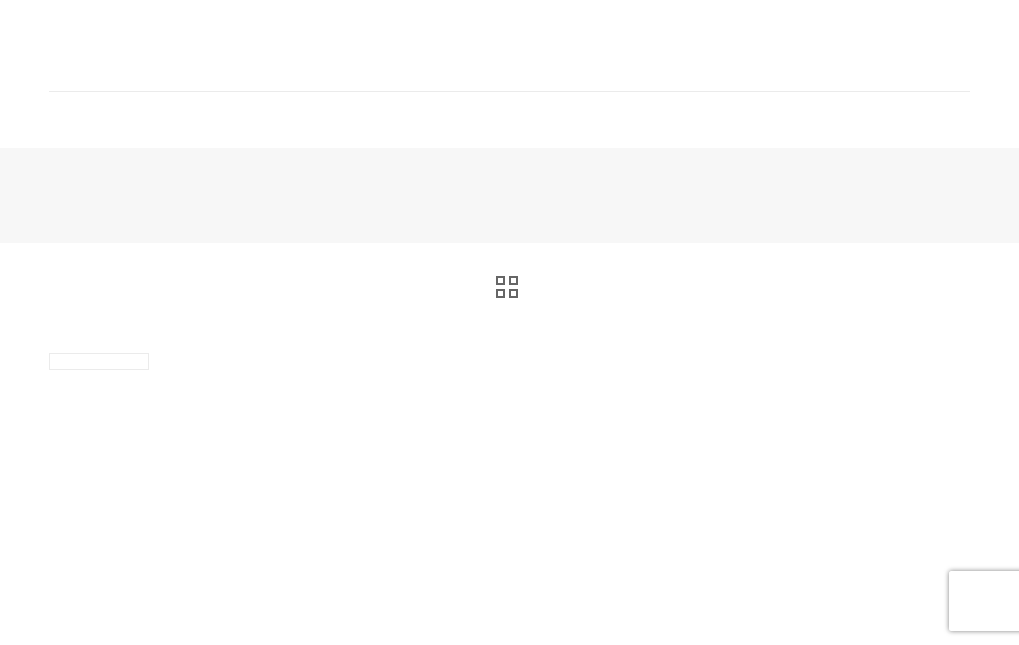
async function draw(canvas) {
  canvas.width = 1019
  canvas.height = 645
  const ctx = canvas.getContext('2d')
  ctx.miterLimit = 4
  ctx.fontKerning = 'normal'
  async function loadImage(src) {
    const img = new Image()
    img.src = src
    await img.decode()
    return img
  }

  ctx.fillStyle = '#fff'
  ctx.fillRect(0, 0, 1019, 645)
  ctx.fillStyle = '#ebebeb'
  ctx.fillRect(49, 91, 921, 1)
  ctx.fillStyle = '#f7f7f7'
  ctx.fillRect(0, 148, 1019, 95)
  ctx.drawImage(await loadImage('image0.png'), 496, 276, 22, 22)
  ctx.strokeStyle = '#ebebeb'
  ctx.strokeRect(49.5, 353.5, 99, 16)
  ctx.save()
  ctx.beginPath()
  ctx.moveTo(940, 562)
  ctx.lineTo(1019, 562)
  ctx.lineTo(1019, 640)
  ctx.lineTo(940, 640)
  ctx.closePath()
  ctx.moveTo(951, 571)
  ctx.lineTo(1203, 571)
  ctx.bezierCurveTo(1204, 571, 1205, 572, 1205, 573)
  ctx.lineTo(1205, 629)
  ctx.bezierCurveTo(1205, 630, 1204, 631, 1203, 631)
  ctx.lineTo(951, 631)
  ctx.bezierCurveTo(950, 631, 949, 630, 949, 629)
  ctx.lineTo(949, 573)
  ctx.bezierCurveTo(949, 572, 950, 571, 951, 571)
  ctx.closePath()
  ctx.clip('evenodd')
  ctx.fillStyle = '#808080'
  ctx.filter = 'blur(2.5px)'
  ctx.beginPath()
  ctx.roundRect(949, 571, 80, 60, 2)
  ctx.fill()
  ctx.filter = 'none'
  ctx.restore()
}

draw(document.querySelector('canvas'))
